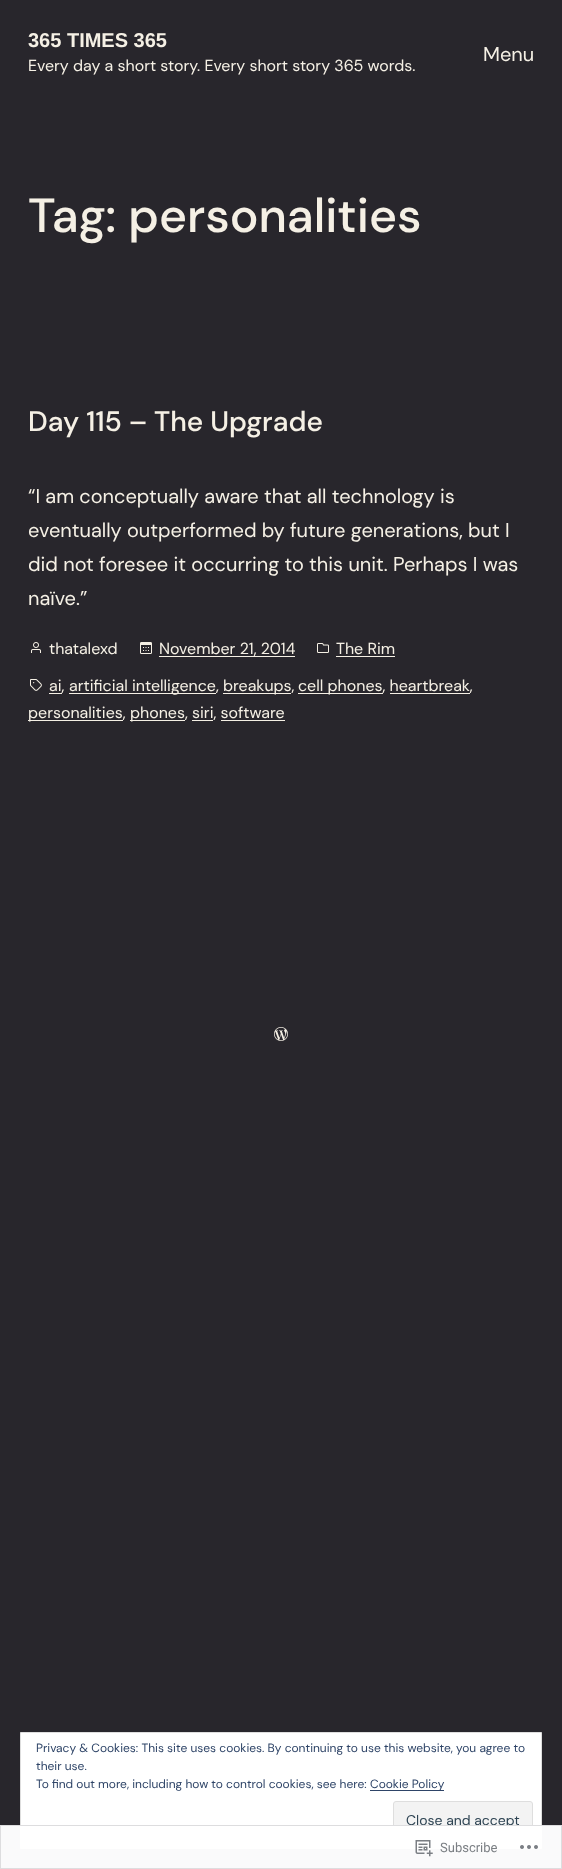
async function draw(canvas) {
  canvas.width = 562
  canvas.height = 1869
  const ctx = canvas.getContext('2d')
  ctx.miterLimit = 4
  ctx.fontKerning = 'normal'
  async function loadImage(src) {
    const img = new Image()
    img.src = src
    await img.decode()
    return img
  }

  ctx.fillStyle = '#28262c'
  ctx.fillRect(0, 0, 562, 1869)
  ctx.font = 'bold 20px Liberation Sans'
  ctx.fillStyle = '#f5f0e5'
  ctx.fillText('365 TIMES 365', 28, 47)
  ctx.font = '16px DM Sans'
  ctx.fillText('Every day a short story. Every short story 365 words.', 28, 71)
  ctx.font = '20px DM Sans'
  ctx.fillText('Menu', 483, 61)
  ctx.font = '500 48px DM Sans'
  ctx.fillText('Tag: personalities', 28, 232)
  ctx.font = '500 28.1px DM Sans'
  ctx.fillText('Day 115 – The Upgrade', 28, 431)
  ctx.font = '20px DM Sans'
  ctx.fillText('“I am conceptually aware that all technology is', 28, 503)
  ctx.fillText('eventually outperformed by future generations, but I', 28, 537)
  ctx.fillText('did not foresee it occurring to this unit. Perhaps I was', 28, 571)
  ctx.fillText('naïve.”', 28, 605)
  ctx.drawImage(await loadImage('image0.png'), 31, 642, 10, 11)
  ctx.font = '16px DM Sans'
  ctx.fillText('thatalexd', 49, 654)
  ctx.drawImage(await loadImage('image1.png'), 140, 642, 12, 12)
  ctx.fillText('November 21, 2014', 159, 654)
  ctx.fillRect(159, 656, 136, 1)
  ctx.drawImage(await loadImage('image2.png'), 317, 643, 12, 10)
  ctx.fillText('The Rim', 336, 654)
  ctx.fillRect(336, 656, 59, 1)
  ctx.drawImage(await loadImage('image3.png'), 30, 679, 12, 12)
  ctx.fillText('ai,', 49, 691)
  ctx.fillRect(49, 693, 13, 1)
  ctx.fillRect(69, 693, 147, 1)
  ctx.fillText('artificial intelligence,', 69, 691)
  ctx.fillRect(223, 693, 68, 1)
  ctx.fillText('breakups,', 223, 691)
  ctx.fillRect(298, 693, 85, 1)
  ctx.fillText('cell phones, heartbreak,', 298, 691)
  ctx.fillRect(390, 693, 80, 1)
  ctx.fillRect(28, 720, 95, 1)
  ctx.fillText('personalities,', 28, 718)
  ctx.fillRect(130, 720, 55, 1)
  ctx.fillText('phones, siri, software', 130, 718)
  ctx.fillRect(192, 720, 21, 1)
  ctx.fillRect(221, 720, 64, 1)
  ctx.drawImage(await loadImage('image4.png'), 274, 1027, 14, 14)
  ctx.fillStyle = '#fff'
  ctx.beginPath()
  ctx.rect(20.5, 1732.5, 521, 116)
  ctx.fill()
  ctx.strokeStyle = '#dedede'
  ctx.stroke()
  ctx.font = '12px DM Sans'
  ctx.fillStyle = '#2e4467'
  ctx.fillText('Privacy & Cookies: This site uses cookies. By continuing to use this website, you agree to', 36, 1752)
  ctx.fillText('their use.', 36, 1770)
  ctx.fillText('To find out more, including how to control cookies, see here:', 36, 1788)
  ctx.fillRect(370, 1790, 74, 1)
  ctx.fillText('Cookie Policy', 370, 1788)
  ctx.fillStyle = '#f3f3f3'
  ctx.beginPath()
  ctx.roundRect(393.5, 1801.5, 139, 38, 2.5)
  ctx.fill()
  ctx.stroke()
  ctx.font = '14px DM Sans'
  ctx.fillStyle = '#2e4453'
  ctx.fillText('Close and accept', 406, 1825)
  ctx.fillStyle = '#fffffffa'
  ctx.fillRect(0, 1825, 562, 44)
  ctx.strokeStyle = '#dcdcdefa'
  ctx.strokeRect(0.5, 1825.5, 561, 43)
  ctx.drawImage(await loadImage('image5.png'), 415, 1840, 18, 17)
  ctx.font = '13px Roboto'
  ctx.fillStyle = '#7b7f84'
  ctx.fillText('Subscribe', 440, 1852)
  ctx.drawImage(await loadImage('image6.png'), 520, 1845, 18, 4)
}

draw(document.querySelector('canvas'))
